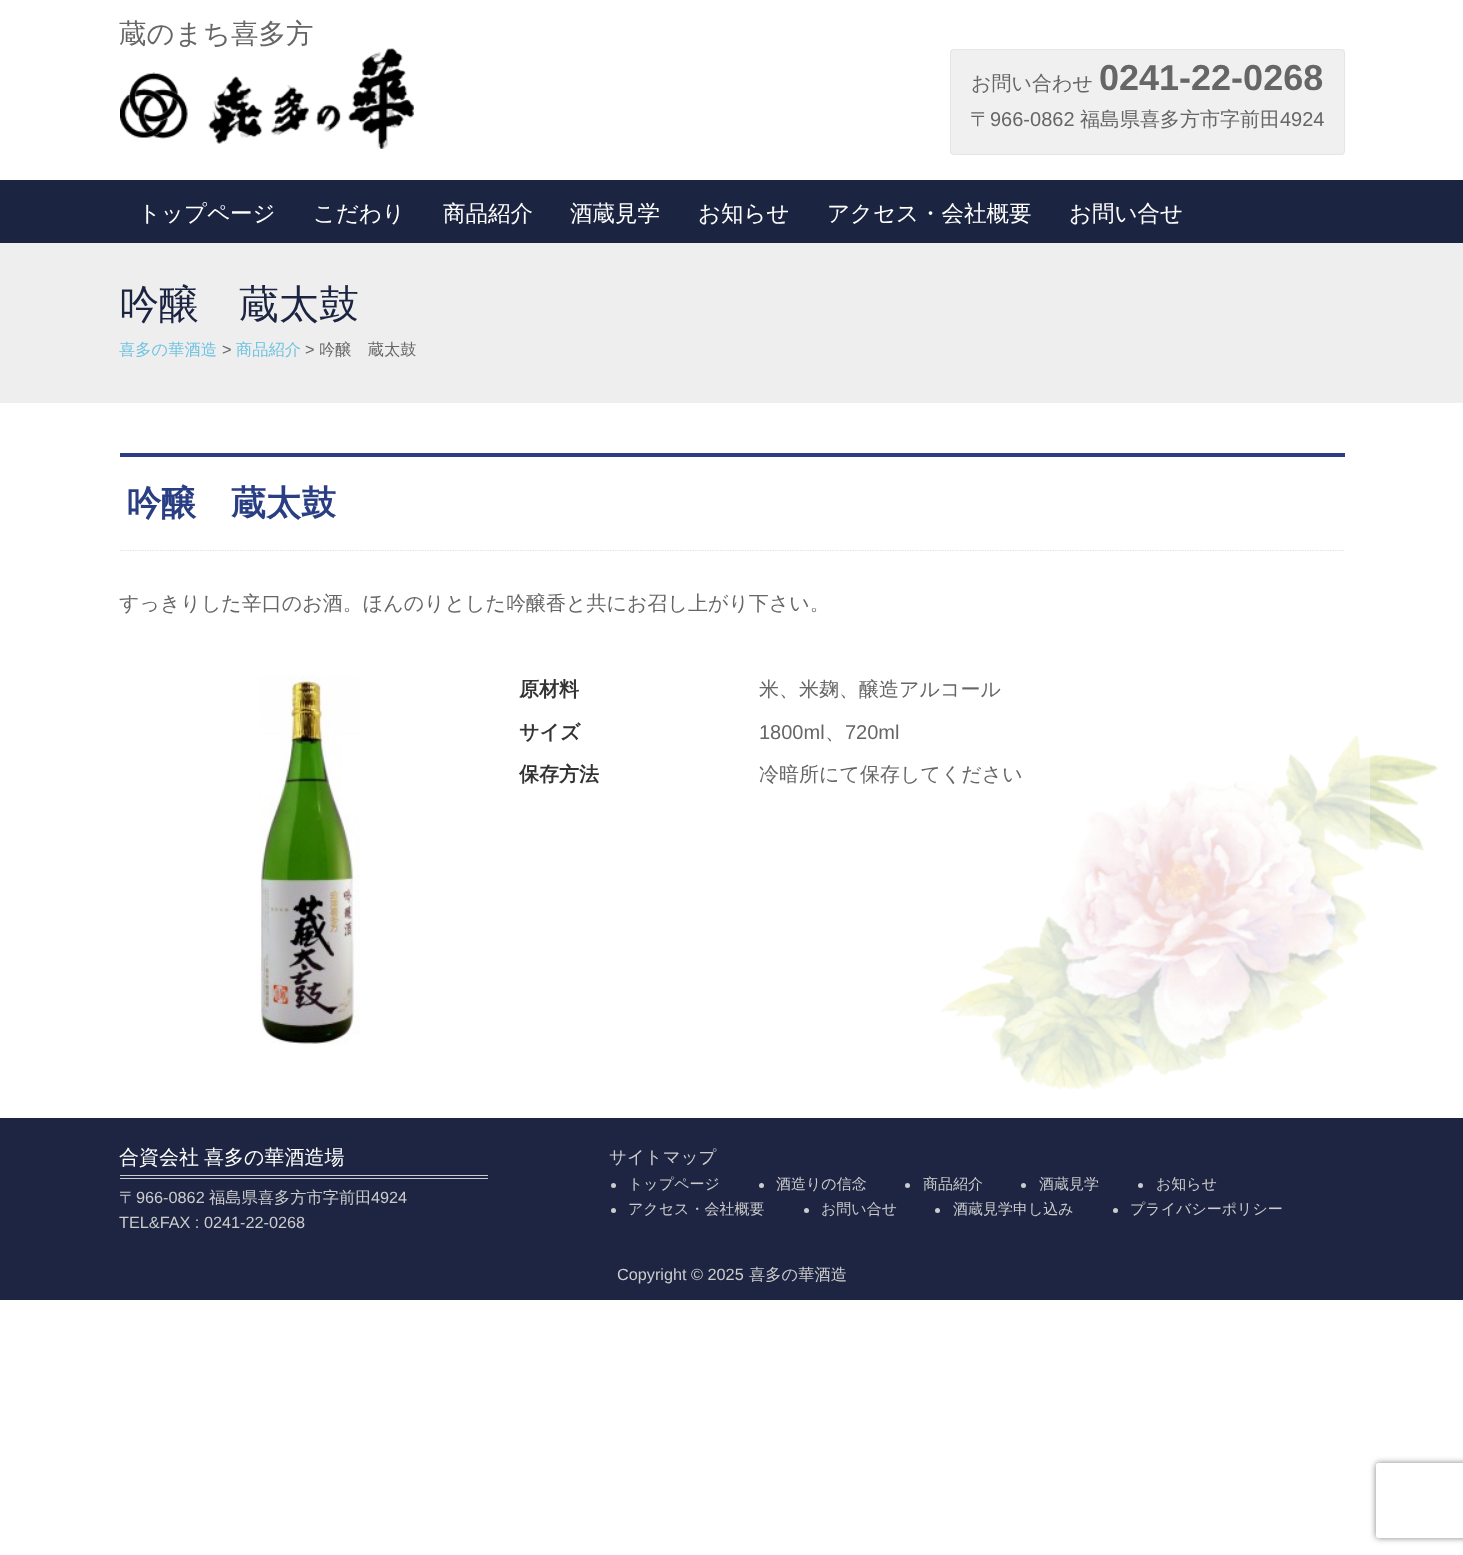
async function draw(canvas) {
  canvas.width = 1463
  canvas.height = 1555
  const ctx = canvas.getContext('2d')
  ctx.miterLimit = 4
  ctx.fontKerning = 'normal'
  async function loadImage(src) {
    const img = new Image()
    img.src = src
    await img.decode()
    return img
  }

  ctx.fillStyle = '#fff'
  ctx.fillRect(0, 0, 1463, 1555)
  ctx.font = '500 27.5px WenQuanYi Zen Hei'
  ctx.fillStyle = '#666'
  ctx.fillText('蔵のまち喜多方', 119, 43)
  ctx.drawImage(await loadImage('image0.png'), 120, 48, 294, 101)
  ctx.fillStyle = '#f0f0f0'
  ctx.beginPath()
  ctx.roundRect(950, 49, 395, 106, 4)
  ctx.fill()
  ctx.beginPath()
  ctx.roundRect(950.5, 49.5, 394, 105, 3.5)
  ctx.strokeStyle = '#dadada80'
  ctx.stroke()
  ctx.font = '500 20px WenQuanYi Zen Hei'
  ctx.fillStyle = '#666'
  ctx.fillText('お問い合わせ', 971, 90)
  ctx.font = 'bold 36px Liberation Sans'
  ctx.fillText('0241-22-0268', 1099, 90)
  ctx.font = '500 20px WenQuanYi Zen Hei'
  ctx.fillText('〒', 970, 126)
  ctx.font = '20px Liberation Sans'
  ctx.fillText('966-0862', 990, 126)
  ctx.font = '500 20px WenQuanYi Zen Hei'
  ctx.fillText('福島県喜多方市字前田', 1080, 126)
  ctx.font = '20px Liberation Sans'
  ctx.fillText('4924', 1280, 126)
  ctx.fillStyle = '#eee'
  ctx.fillRect(0, 243, 1463, 160)
  ctx.fillStyle = '#1b2440'
  ctx.fillRect(0, 180, 1463, 63)
  ctx.font = '500 22.5px WenQuanYi Zen Hei'
  ctx.fillStyle = '#fff'
  ctx.fillText('トップページ', 138, 221)
  ctx.fillText('こだわり', 313, 221)
  ctx.fillText('商品紹介', 443, 221)
  ctx.fillText('酒蔵見学', 570, 221)
  ctx.fillText('お知らせ', 698, 221)
  ctx.fillText('アクセス・会社概要', 827, 221)
  ctx.fillText('お問い合せ', 1069, 221)
  ctx.font = '500 40px WenQuanYi Zen Hei'
  ctx.fillStyle = '#1b2440'
  ctx.fillText('吟醸　蔵太鼓', 119, 318)
  ctx.font = '500 16.25px WenQuanYi Zen Hei'
  ctx.fillStyle = '#70c3e1'
  ctx.fillText('喜多の華酒造', 119, 355)
  ctx.font = '16.25px Liberation Sans'
  ctx.fillStyle = '#666'
  ctx.fillText('>', 222, 355)
  ctx.font = '500 16.25px WenQuanYi Zen Hei'
  ctx.fillStyle = '#70c3e1'
  ctx.fillText('商品紹介', 236, 355)
  ctx.font = '16.25px Liberation Sans'
  ctx.fillStyle = '#666'
  ctx.fillText('>', 305, 355)
  ctx.font = '500 16.25px WenQuanYi Zen Hei'
  ctx.fillText('吟醸　蔵太鼓', 319, 355)
  ctx.drawImage(await loadImage('image1.png'), 940, 735, 498, 355)
  ctx.fillStyle = '#ffffff66'
  ctx.fillRect(940, 735, 430, 355)
  ctx.fillStyle = '#2a3e83'
  ctx.fillRect(120, 453, 1225, 4)
  ctx.beginPath()
  ctx.moveTo(120, 550.5)
  ctx.lineTo(1345, 550.5)
  ctx.strokeStyle = '#e0e0e0'
  ctx.lineWidth = 1.2
  ctx.setLineDash([1.25, 1.25])
  ctx.stroke()
  ctx.font = 'bold 35px WenQuanYi Zen Hei'
  ctx.fillText('吟醸　蔵太鼓', 126, 515)
  ctx.font = '500 20px WenQuanYi Zen Hei'
  ctx.fillStyle = '#666'
  ctx.fillText('すっきりした辛口のお酒。ほんのりとした吟醸香と共にお召し上がり下さい。', 119, 610)
  ctx.drawImage(await loadImage('image2.png'), 259, 675, 101, 370)
  ctx.font = 'bold 20px WenQuanYi Zen Hei'
  ctx.fillStyle = '#333'
  ctx.fillText('原材料', 519, 696)
  ctx.font = '500 20px WenQuanYi Zen Hei'
  ctx.fillStyle = '#666'
  ctx.fillText('米、米麹、醸造アルコール', 759, 696)
  ctx.font = 'bold 20px WenQuanYi Zen Hei'
  ctx.fillStyle = '#333'
  ctx.fillText('サイズ', 519, 739)
  ctx.font = '20px Liberation Sans'
  ctx.fillStyle = '#666'
  ctx.fillText('1800ml', 759, 739)
  ctx.font = '500 20px WenQuanYi Zen Hei'
  ctx.fillText('、', 825, 739)
  ctx.font = '20px Liberation Sans'
  ctx.fillText('720ml', 845, 739)
  ctx.font = 'bold 20px WenQuanYi Zen Hei'
  ctx.fillStyle = '#333'
  ctx.fillText('保存方法', 519, 781)
  ctx.font = '500 20px WenQuanYi Zen Hei'
  ctx.fillStyle = '#666'
  ctx.fillText('冷暗所にて保存してください', 759, 781)
  ctx.fillStyle = '#1d2542'
  ctx.fillRect(0, 1118, 1463, 182)
  ctx.fillStyle = '#ccc'
  ctx.fillRect(120, 1175, 368, 1)
  ctx.fillRect(120, 1178, 368, 1)
  ctx.wordSpacing = '-1px'
  ctx.fillStyle = '#fff'
  ctx.fillText('合資会社 喜多の華酒造場', 119, 1164)
  ctx.wordSpacing = '0px'
  ctx.font = '500 16.25px WenQuanYi Zen Hei'
  ctx.fillStyle = '#ccc'
  ctx.fillText('〒', 119, 1203)
  ctx.font = '16.25px Liberation Sans'
  ctx.fillText('966-0862', 136, 1203)
  ctx.font = '500 16.25px WenQuanYi Zen Hei'
  ctx.fillText('福島県喜多方市字前田', 209, 1203)
  ctx.font = '16.25px Liberation Sans'
  ctx.fillText('4924', 371, 1203)
  ctx.fillText('TEL&FAX : 0241-22-0268', 119, 1228)
  ctx.font = '500 17.5px WenQuanYi Zen Hei'
  ctx.fillText('サイトマップ', 609, 1163)
  ctx.beginPath()
  ctx.arc(613.5, 1185.5, 2.5, 0, 2 * Math.PI)
  ctx.fill()
  ctx.font = '500 15px WenQuanYi Zen Hei'
  ctx.fillText('トップページ', 628, 1189)
  ctx.beginPath()
  ctx.arc(761.5, 1185.5, 2.5, 0, 2 * Math.PI)
  ctx.fill()
  ctx.fillText('酒造りの信念', 776, 1189)
  ctx.beginPath()
  ctx.arc(907.5, 1185.5, 2.5, 0, 2 * Math.PI)
  ctx.fill()
  ctx.fillText('商品紹介', 923, 1189)
  ctx.beginPath()
  ctx.arc(1023.5, 1185.5, 2.5, 0, 2 * Math.PI)
  ctx.fill()
  ctx.fillText('酒蔵見学', 1039, 1189)
  ctx.beginPath()
  ctx.arc(1140.5, 1185.5, 2.5, 0, 2 * Math.PI)
  ctx.fill()
  ctx.fillText('お知らせ', 1156, 1189)
  ctx.beginPath()
  ctx.arc(613.5, 1210.5, 2.5, 0, 2 * Math.PI)
  ctx.fill()
  ctx.fillText('アクセス・会社概要', 628, 1214)
  ctx.beginPath()
  ctx.arc(806.5, 1210.5, 2.5, 0, 2 * Math.PI)
  ctx.fill()
  ctx.fillText('お問い合せ', 821, 1214)
  ctx.beginPath()
  ctx.arc(937.5, 1210.5, 2.5, 0, 2 * Math.PI)
  ctx.fill()
  ctx.fillText('酒蔵見学申し込み', 953, 1214)
  ctx.beginPath()
  ctx.arc(1115.5, 1210.5, 2.5, 0, 2 * Math.PI)
  ctx.fill()
  ctx.fillText('プライバシーポリシー', 1130, 1214)
  ctx.font = '16.25px Liberation Sans'
  ctx.fillText('Copyright © 2025', 617, 1280)
  ctx.font = '500 16.25px WenQuanYi Zen Hei'
  ctx.fillText('喜多の華酒造', 749, 1280)
  ctx.save()
  ctx.beginPath()
  ctx.moveTo(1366, 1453)
  ctx.lineTo(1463, 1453)
  ctx.lineTo(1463, 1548)
  ctx.lineTo(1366, 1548)
  ctx.closePath()
  ctx.moveTo(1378.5, 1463)
  ctx.lineTo(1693.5, 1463)
  ctx.bezierCurveTo(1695, 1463, 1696, 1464, 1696, 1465.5)
  ctx.lineTo(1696, 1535.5)
  ctx.bezierCurveTo(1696, 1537, 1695, 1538, 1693.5, 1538)
  ctx.lineTo(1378.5, 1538)
  ctx.bezierCurveTo(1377, 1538, 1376, 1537, 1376, 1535.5)
  ctx.lineTo(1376, 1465.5)
  ctx.bezierCurveTo(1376, 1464, 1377, 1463, 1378.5, 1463)
  ctx.closePath()
  ctx.clip('evenodd')
  ctx.fillStyle = '#808080'
  ctx.filter = 'blur(3px)'
  ctx.beginPath()
  ctx.roundRect(1376, 1463, 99, 75, 2.5)
  ctx.fill()
  ctx.filter = 'none'
  ctx.restore()
}

draw(document.querySelector('canvas'))
